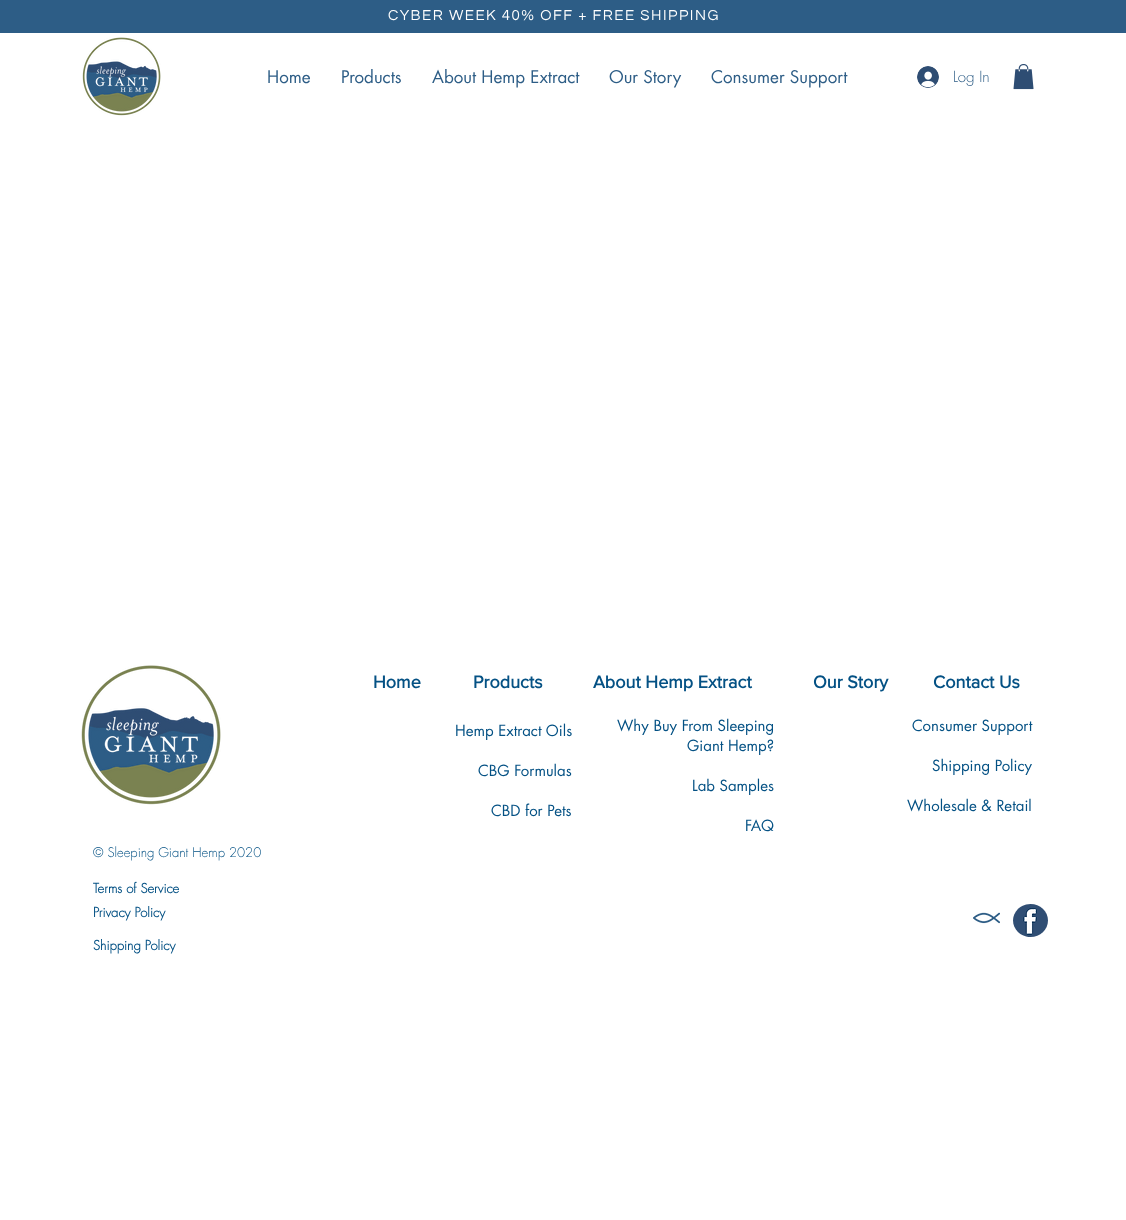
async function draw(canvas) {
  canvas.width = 1126
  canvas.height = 1220
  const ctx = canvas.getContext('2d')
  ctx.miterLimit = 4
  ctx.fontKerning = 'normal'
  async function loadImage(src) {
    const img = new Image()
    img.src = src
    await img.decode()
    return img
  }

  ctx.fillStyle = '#fff'
  ctx.fillRect(0, 0, 1126, 1220)
  ctx.fillStyle = '#2d5d86'
  ctx.fillRect(0, 0, 1126, 33)
  ctx.letterSpacing = '1.5px'
  ctx.font = '15px Questrial'
  ctx.fillStyle = '#fff'
  ctx.fillText('CYBER WEEK 40% OFF + FREE SHIPPING', 388, 20)
  ctx.drawImage(await loadImage('image0.png'), 82, 37, 79, 79)
  ctx.letterSpacing = '0px'
  ctx.font = '17px futura'
  ctx.fillStyle = '#2d5d86'
  ctx.fillText('Home', 267, 83)
  ctx.fillText('Products', 341, 83)
  ctx.fillText('About Hemp Extract', 432, 83)
  ctx.fillText('Our Story', 609, 83)
  ctx.fillText('Consumer Support', 711, 83)
  ctx.drawImage(await loadImage('image1.png'), 917, 66, 22, 22)
  ctx.font = '300 15px futura'
  ctx.fillText('Log In', 953, 82)
  ctx.drawImage(await loadImage('image2.png'), 1013, 64, 21, 26)
  ctx.drawImage(await loadImage('image3.png'), 81, 665, 140, 140)
  ctx.font = 'bold 18px "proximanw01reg"'
  ctx.fillStyle = '#045184'
  ctx.fillText('Home', 373, 688)
  ctx.fillText('Products', 473, 688)
  ctx.fillText('About Hemp Extract', 593, 688)
  ctx.fillText('Our Story', 813, 688)
  ctx.fillText('Contact Us', 933, 688)
  ctx.font = '15px futura'
  ctx.fillText('Hemp Extract Oils', 455, 736)
  ctx.fillText('CBG Formulas', 478, 776)
  ctx.fillText('CBD for Pets', 491, 816)
  ctx.fillText('Why Buy From Sleeping', 617, 731)
  ctx.fillText('Giant Hemp?', 687, 751)
  ctx.fillText('Lab Samples', 692, 791)
  ctx.fillText('FAQ', 745, 831)
  ctx.fillText('Consumer Support', 912, 731)
  ctx.fillText('Shipping Policy', 932, 771)
  ctx.fillText('Wholesale & Retail', 907, 811)
  ctx.font = '300 13px futura'
  ctx.fillText('© Sleeping Giant Hemp 2020', 93, 857)
  ctx.font = 'bold 13px futura'
  ctx.fillText('Terms of Service', 93, 893)
  ctx.fillText('Privacy Policy', 93, 917)
  ctx.drawImage(await loadImage('image4.png'), 973, 912, 27, 12)
  ctx.drawImage(await loadImage('image5.png'), 1013, 904, 35, 33)
  ctx.fillText('Shipping Policy', 93, 950)
}

draw(document.querySelector('canvas'))
